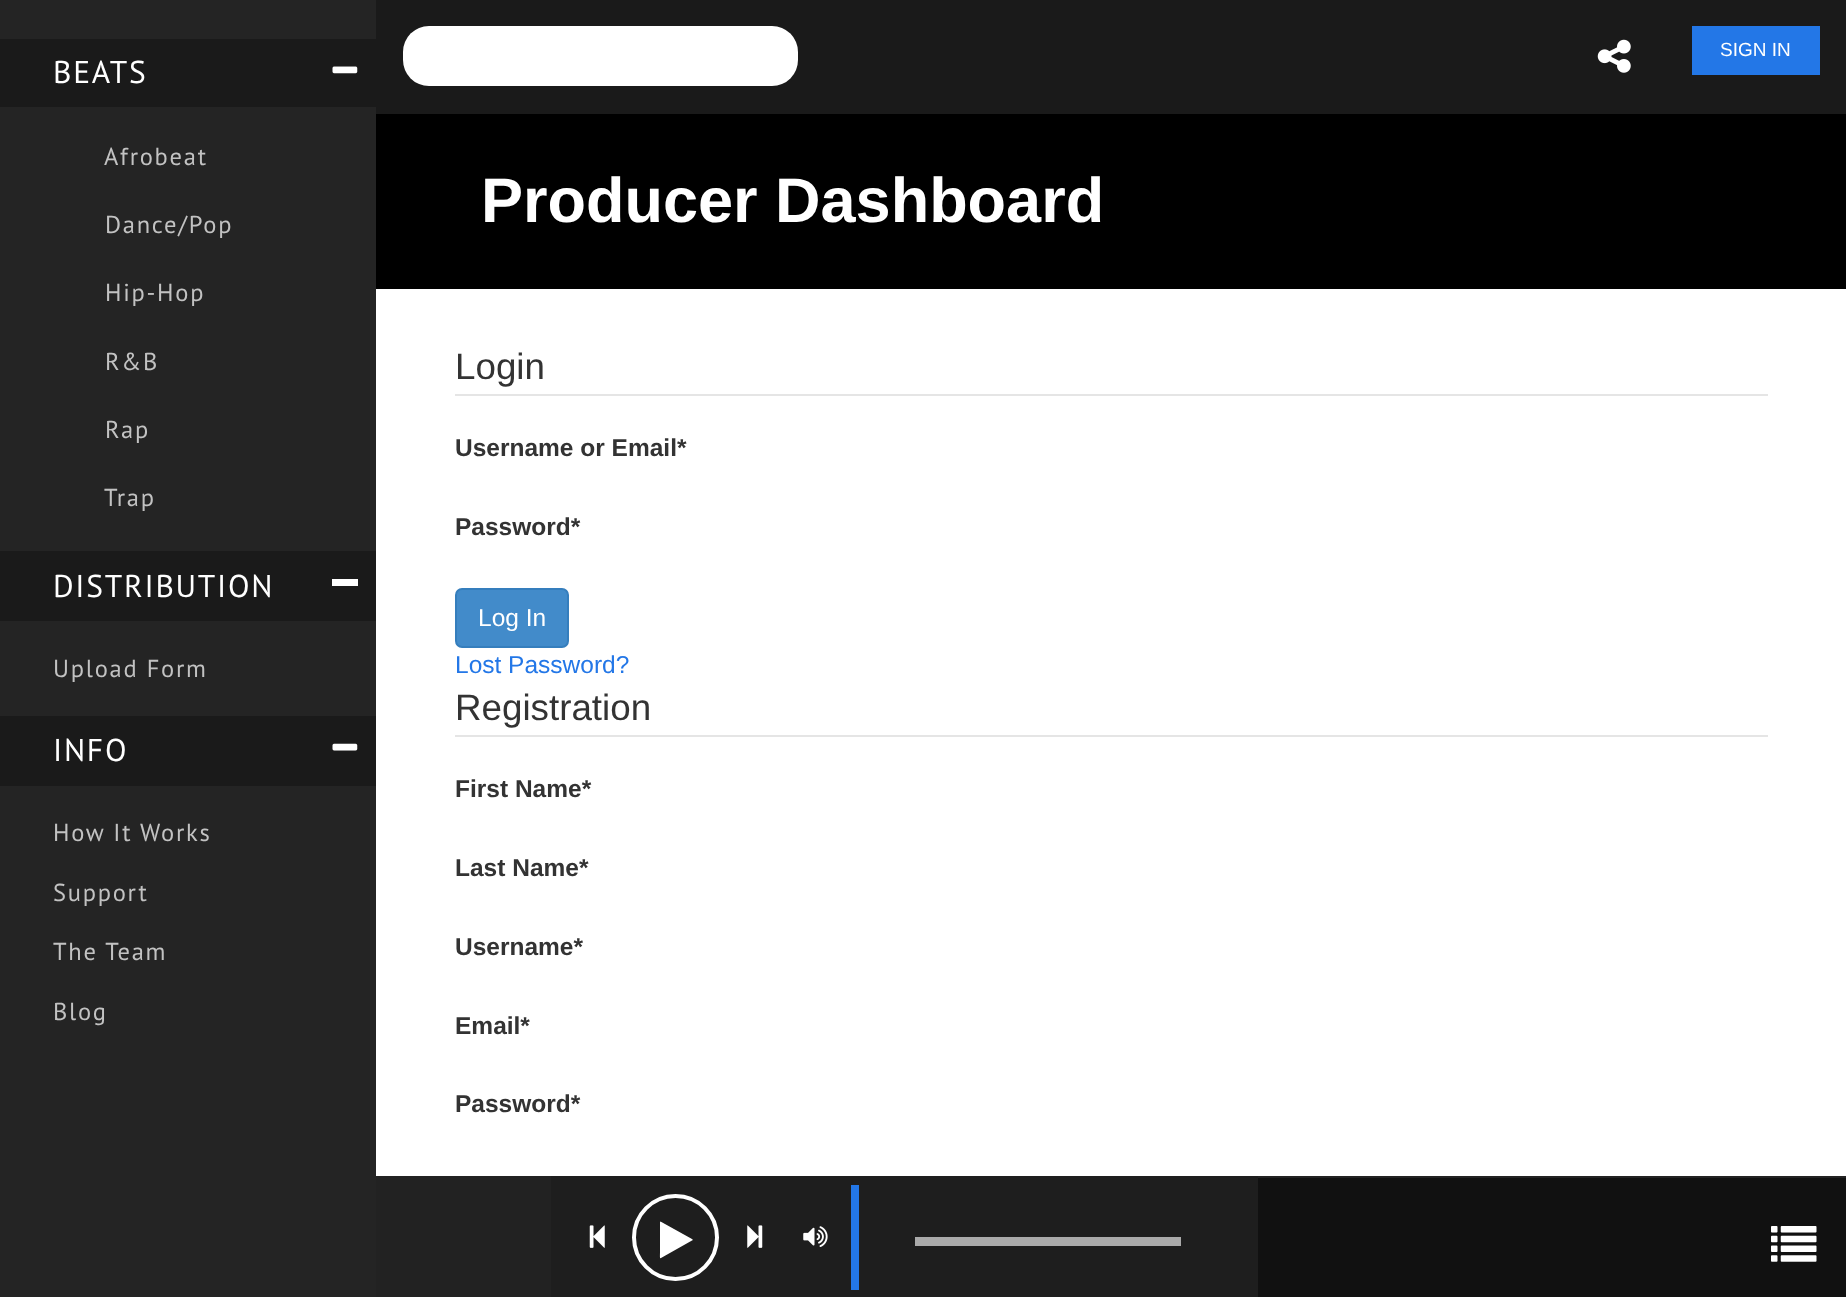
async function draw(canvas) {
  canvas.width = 1846
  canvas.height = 1297
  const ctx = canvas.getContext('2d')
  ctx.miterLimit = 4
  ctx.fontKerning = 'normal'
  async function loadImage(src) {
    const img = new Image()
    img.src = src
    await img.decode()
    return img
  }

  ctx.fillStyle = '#fff'
  ctx.fillRect(0, 0, 1846, 1297)
  ctx.fillStyle = '#1a1a1a'
  ctx.fillRect(376, 0, 1470, 114)
  ctx.fillStyle = '#fff'
  ctx.beginPath()
  ctx.roundRect(403, 26, 395, 60, 26)
  ctx.fill()
  ctx.drawImage(await loadImage('image0.png'), 1597, 39, 34, 34)
  ctx.fillStyle = '#2377e7'
  ctx.fillRect(1692, 26, 128, 49)
  ctx.font = '19px Liberation Sans'
  ctx.fillStyle = '#fff'
  ctx.fillText('SIGN IN', 1720, 56)
  ctx.fillStyle = '#242424'
  ctx.fillRect(0, 0, 376, 1297)
  ctx.fillStyle = '#1a1a1a'
  ctx.fillRect(0, 39, 376, 68)
  ctx.letterSpacing = '1.75px'
  ctx.font = '31.5px PT Sans'
  ctx.fillStyle = '#fff'
  ctx.fillText('BEATS', 53, 83)
  ctx.drawImage(await loadImage('image1.png'), 332, 66, 26, 8)
  ctx.font = '24.5px PT Sans'
  ctx.fillStyle = '#c2c2c2'
  ctx.fillText('Afrobeat', 104, 165)
  ctx.fillText('Dance/Pop', 105, 233)
  ctx.fillText('Hip-Hop', 105, 301)
  ctx.fillText('R&B', 105, 370)
  ctx.fillText('Rap', 105, 438)
  ctx.fillText('Trap', 104, 506)
  ctx.fillStyle = '#1a1a1a'
  ctx.fillRect(0, 551, 376, 70)
  ctx.font = '31.5px PT Sans'
  ctx.fillStyle = '#fff'
  ctx.fillText('DISTRIBUTION', 53, 597)
  ctx.fillRect(332, 579, 26, 7)
  ctx.font = '24.5px PT Sans'
  ctx.fillStyle = '#c2c2c2'
  ctx.fillText('Upload Form', 53, 677)
  ctx.fillStyle = '#1a1a1a'
  ctx.fillRect(0, 716, 376, 70)
  ctx.font = '31.5px PT Sans'
  ctx.fillStyle = '#fff'
  ctx.fillText('INFO', 53, 761)
  ctx.drawImage(await loadImage('image2.png'), 332, 743, 26, 8)
  ctx.font = '24.5px PT Sans'
  ctx.fillStyle = '#c2c2c2'
  ctx.fillText('How It Works', 53, 841)
  ctx.fillText('Support', 53, 901)
  ctx.fillText('The Team', 53, 960)
  ctx.fillText('Blog', 53, 1020)
  ctx.fillStyle = '#000'
  ctx.fillRect(376, 114, 1470, 175)
  ctx.letterSpacing = '0px'
  ctx.font = 'bold 63px Liberation Sans'
  ctx.fillStyle = '#fff'
  ctx.fillText('Producer Dashboard', 481, 222)
  ctx.fillStyle = '#e5e5e5'
  ctx.fillRect(455, 394, 1313, 2)
  ctx.font = '36.75px Liberation Sans'
  ctx.fillStyle = '#333'
  ctx.fillText('Login', 455, 379)
  ctx.font = 'bold 24.5px Liberation Sans'
  ctx.fillText('Username or Email*', 455, 456)
  ctx.fillText('Password*', 455, 535)
  ctx.fillStyle = '#428bca'
  ctx.beginPath()
  ctx.roundRect(456, 589, 112, 58, 6)
  ctx.fill()
  ctx.strokeStyle = '#357ebd'
  ctx.lineWidth = 2
  ctx.stroke()
  ctx.font = '24.5px Liberation Sans'
  ctx.fillStyle = '#fff'
  ctx.fillText('Log In', 478, 626)
  ctx.fillStyle = '#2377e7'
  ctx.fillText('Lost Password?', 455, 673)
  ctx.fillStyle = '#e5e5e5'
  ctx.fillRect(455, 735, 1313, 2)
  ctx.font = '36.75px Liberation Sans'
  ctx.fillStyle = '#333'
  ctx.fillText('Registration', 455, 720)
  ctx.font = 'bold 24.5px Liberation Sans'
  ctx.fillText('First Name*', 455, 797)
  ctx.fillText('Last Name*', 455, 876)
  ctx.fillText('Username*', 455, 955)
  ctx.fillText('Email*', 455, 1034)
  ctx.fillText('Password*', 455, 1112)
  ctx.fillStyle = '#1e1e1e'
  ctx.fillRect(551, 1176, 707, 121)
  ctx.fillStyle = '#222'
  ctx.fillRect(376, 1176, 175, 121)
  ctx.drawImage(await loadImage('image3.png'), 589, 1225, 16, 23)
  ctx.beginPath()
  ctx.arc(675.5, 1237.5, 41.5, 0, 2 * Math.PI)
  ctx.strokeStyle = '#fff'
  ctx.lineWidth = 4
  ctx.stroke()
  ctx.fillStyle = '#fff'
  ctx.beginPath()
  ctx.moveTo(692, 1240.5)
  ctx.bezierCurveTo(693, 1240, 693, 1239.5, 692, 1239)
  ctx.lineTo(660.5, 1221.5)
  ctx.lineTo(660, 1222)
  ctx.lineTo(660, 1251)
  ctx.bezierCurveTo(660, 1256.5, 659.5, 1259, 661, 1258)
  ctx.closePath()
  ctx.fill()
  ctx.drawImage(await loadImage('image4.png'), 747, 1225, 16, 23)
  ctx.drawImage(await loadImage('image5.png'), 803, 1226, 25, 21)
  ctx.fillStyle = '#2377e7'
  ctx.fillRect(851, 1185, 8, 105)
  ctx.fillStyle = '#aaa'
  ctx.fillRect(915, 1237, 266, 9)
  ctx.fillStyle = '#111'
  ctx.fillRect(1258, 1178, 588, 119)
  ctx.fillStyle = '#222'
  ctx.fillRect(1258, 1176, 588, 2)
  ctx.drawImage(await loadImage('image6.png'), 1771, 1226, 46, 36)
}

draw(document.querySelector('canvas'))
